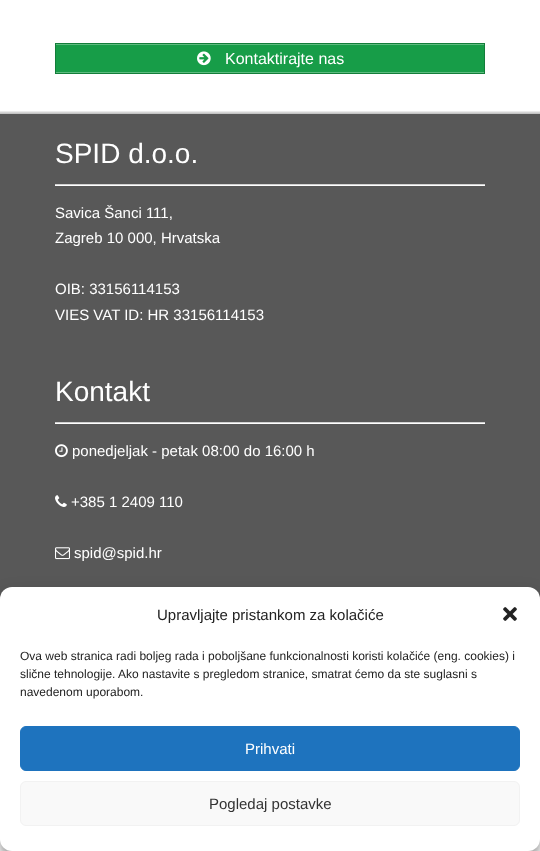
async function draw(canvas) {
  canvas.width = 540
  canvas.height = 851
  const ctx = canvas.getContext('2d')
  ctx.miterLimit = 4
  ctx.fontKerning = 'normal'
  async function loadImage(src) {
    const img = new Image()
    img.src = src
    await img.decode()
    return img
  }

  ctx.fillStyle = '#fff'
  ctx.fillRect(0, 0, 540, 851)
  ctx.fillStyle = '#179d48'
  ctx.fillRect(56, 45, 428, 27)
  ctx.strokeStyle = '#137e3a'
  ctx.strokeRect(55.5, 43.5, 429, 30)
  ctx.fillStyle = '#5dbb7f'
  ctx.fillRect(56, 44, 428, 1)
  ctx.fillRect(56, 72, 428, 1)
  ctx.drawImage(await loadImage('image0.png'), 197, 51, 14, 15)
  ctx.font = '16px Liberation Sans'
  ctx.fillStyle = '#fff'
  ctx.fillText('Kontaktirajte nas', 225, 64)
  ctx.save()
  ctx.beginPath()
  ctx.rect(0, 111, 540, 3)
  ctx.clip()
  ctx.fillStyle = '#00000040'
  ctx.filter = 'blur(1px)'
  ctx.beginPath()
  ctx.rect(-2, 112, 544, 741)
  ctx.fill()
  ctx.filter = 'none'
  ctx.restore()
  ctx.fillStyle = '#585858'
  ctx.fillRect(0, 114, 540, 485)
  ctx.fillStyle = '#fff'
  ctx.fillRect(55, 185, 430, 1)
  ctx.fillStyle = '#d1d1d1'
  ctx.fillRect(55, 184, 430, 1)
  ctx.font = '28px Liberation Sans'
  ctx.fillStyle = '#fff'
  ctx.fillText('SPID d.o.o.', 55, 163)
  ctx.font = '15px Liberation Sans'
  ctx.fillText('Savica Šanci 111,', 55, 218)
  ctx.fillText('Zagreb 10 000, Hrvatska', 55, 243)
  ctx.fillText('OIB: 33156114153', 55, 294)
  ctx.fillText('VIES VAT ID: HR 33156114153', 55, 320)
  ctx.fillRect(55, 423, 430, 1)
  ctx.fillStyle = '#d1d1d1'
  ctx.fillRect(55, 422, 430, 1)
  ctx.font = '28px Liberation Sans'
  ctx.fillStyle = '#fff'
  ctx.fillText('Kontakt', 55, 401)
  ctx.drawImage(await loadImage('image1.png'), 55, 444, 13, 14)
  ctx.font = '15px Liberation Sans'
  ctx.fillText('ponedjeljak - petak 08:00 do 16:00 h', 72, 456)
  ctx.drawImage(await loadImage('image2.png'), 55, 495, 12, 12)
  ctx.fillText('+385 1 2409 110', 71, 507)
  ctx.drawImage(await loadImage('image3.png'), 55, 547, 15, 13)
  ctx.fillText('spid@spid.hr', 74, 558)
  ctx.fillStyle = '#0000003b'
  ctx.filter = 'blur(3px)'
  ctx.beginPath()
  ctx.roundRect(0, 593, 540, 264, 12)
  ctx.fill()
  ctx.filter = 'none'
  ctx.fillStyle = '#00000030'
  ctx.filter = 'blur(10px)'
  ctx.beginPath()
  ctx.roundRect(0, 597, 540, 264, 12)
  ctx.fill()
  ctx.filter = 'none'
  ctx.fillStyle = '#fff'
  ctx.beginPath()
  ctx.roundRect(0, 587, 540, 264, 12)
  ctx.fill()
  ctx.fillStyle = '#222'
  ctx.fillText('Upravljajte pristankom za kolačiće', 157, 620)
  ctx.drawImage(await loadImage('image4.png'), 503, 607, 14, 14)
  ctx.font = '12px Liberation Sans'
  ctx.fillText('Ova web stranica radi boljeg rada i poboljšane funkcionalnosti koristi kolačiće (eng. cookies) i', 20, 660)
  ctx.fillText('slične tehnologije. Ako nastavite s pregledom stranice, smatrat ćemo da ste suglasni s', 20, 678)
  ctx.fillText('navedenom uporabom.', 20, 696)
  ctx.fillStyle = '#1e73be'
  ctx.beginPath()
  ctx.roundRect(20.5, 726.5, 499, 44, 5.5)
  ctx.fill()
  ctx.strokeStyle = '#1e73be'
  ctx.stroke()
  ctx.font = '15px Liberation Sans'
  ctx.fillStyle = '#fff'
  ctx.fillText('Prihvati', 245, 754)
  ctx.fillStyle = '#f9f9f9'
  ctx.beginPath()
  ctx.roundRect(20.5, 781.5, 499, 44, 5.5)
  ctx.fill()
  ctx.strokeStyle = '#f2f2f2'
  ctx.stroke()
  ctx.fillStyle = '#333'
  ctx.fillText('Pogledaj postavke', 209, 809)
}

draw(document.querySelector('canvas'))
